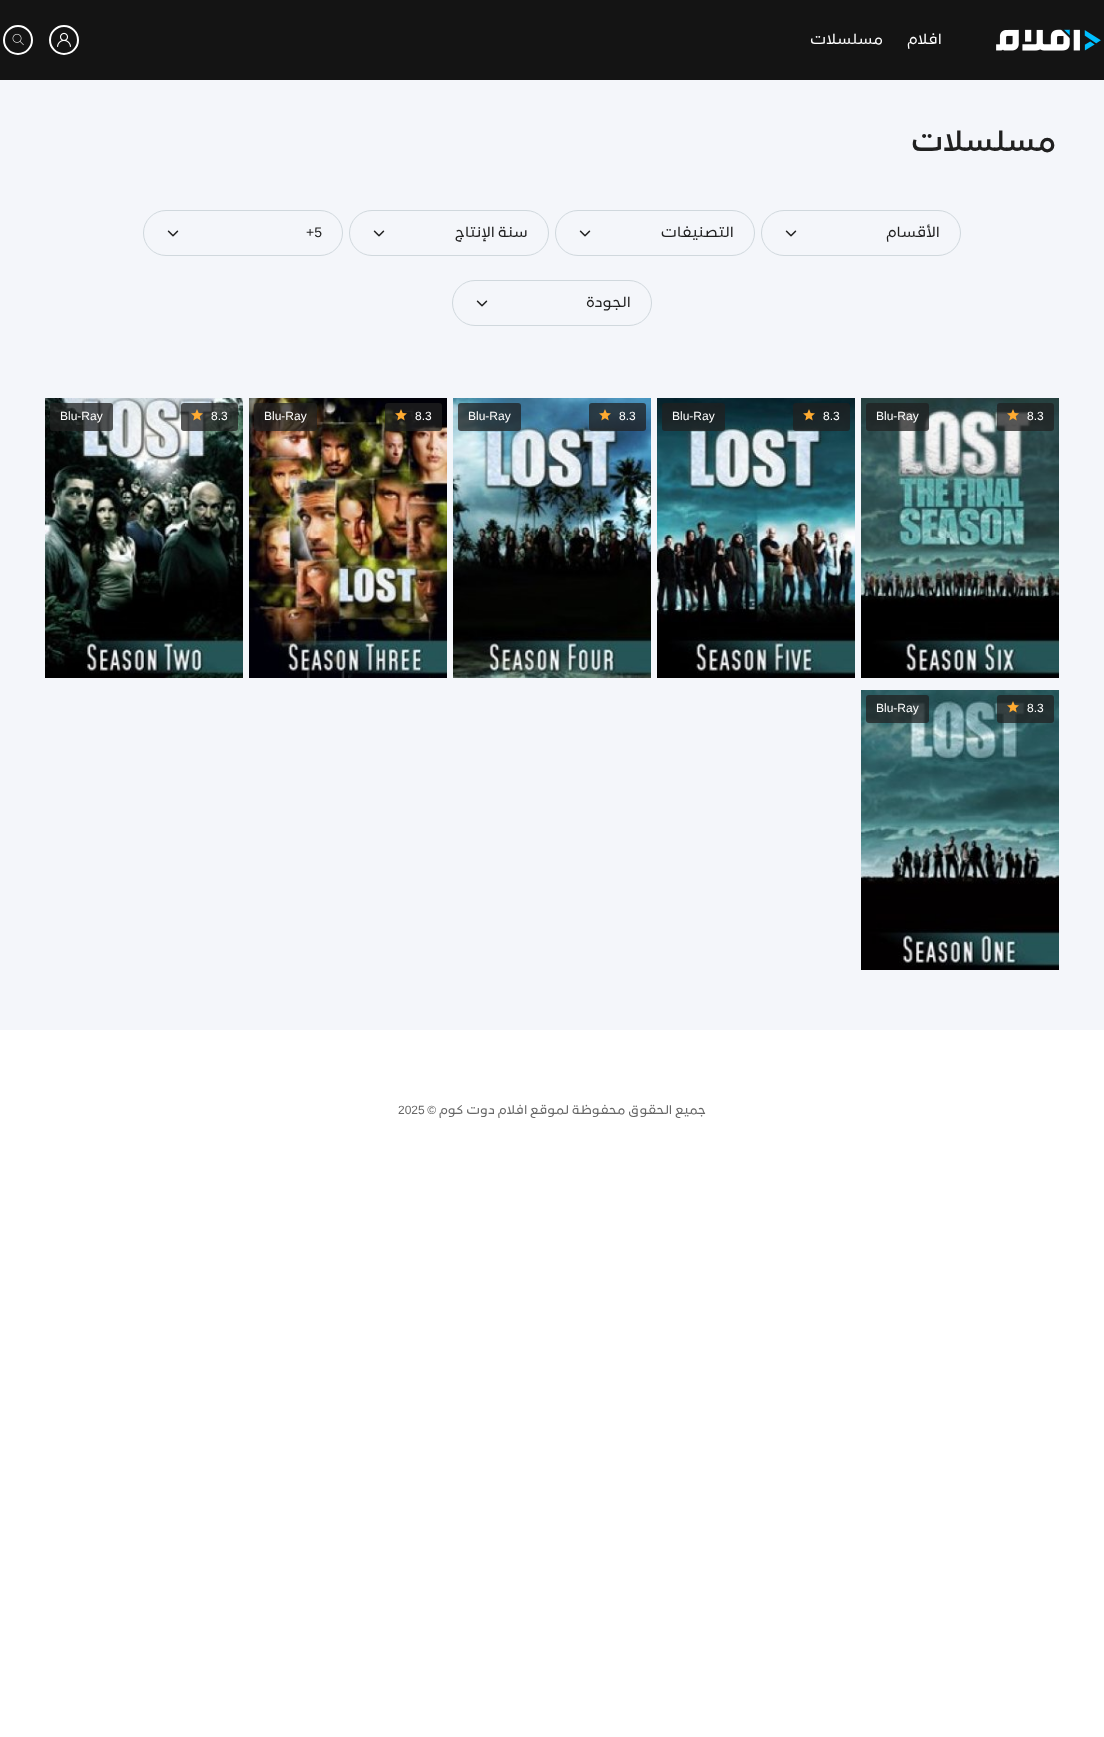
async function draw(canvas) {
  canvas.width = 1104
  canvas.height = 1737
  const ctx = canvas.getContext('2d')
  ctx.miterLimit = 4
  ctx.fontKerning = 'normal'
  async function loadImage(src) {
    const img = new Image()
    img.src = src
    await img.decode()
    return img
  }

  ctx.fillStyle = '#fff'
  ctx.fillRect(0, 0, 1104, 1737)
  ctx.fillStyle = '#141414'
  ctx.fillRect(0, 0, 1104, 80)
  ctx.drawImage(await loadImage('image0.png'), 996, 29, 105, 22)
  ctx.direction = 'rtl'
  ctx.font = '500 14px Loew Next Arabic'
  ctx.fillStyle = '#fff'
  ctx.fillText('افلام', 942, 44)
  ctx.fillText('مسلسلات', 883, 44)
  ctx.beginPath()
  ctx.arc(64, 40, 14, 0, 2 * Math.PI)
  ctx.strokeStyle = '#fff'
  ctx.lineWidth = 2
  ctx.stroke()
  ctx.drawImage(await loadImage('image1.png'), 57, 32, 14, 15)
  ctx.beginPath()
  ctx.arc(18, 40, 14, 0, 2 * Math.PI)
  ctx.stroke()
  ctx.drawImage(await loadImage('image2.png'), 12, 33, 12, 13)
  ctx.fillStyle = '#f4f6fa'
  ctx.fillRect(0, 80, 1104, 950)
  ctx.font = 'bold 28px Loew Next Arabic'
  ctx.fillStyle = '#202020'
  ctx.fillText('مسلسلات', 1056, 151)
  ctx.beginPath()
  ctx.roundRect(761.5, 210.5, 199, 45, 22.5)
  ctx.strokeStyle = '#d0d8dd'
  ctx.lineWidth = 1
  ctx.stroke()
  ctx.font = '500 14px Loew Next Arabic'
  ctx.fillText('الأقسام', 940, 237)
  ctx.drawImage(await loadImage('image3.png'), 785, 230, 12, 7)
  ctx.beginPath()
  ctx.roundRect(555.5, 210.5, 199, 45, 22.5)
  ctx.stroke()
  ctx.fillText('التصنيفات', 734, 237)
  ctx.drawImage(await loadImage('image3.png'), 579, 230, 12, 7)
  ctx.beginPath()
  ctx.roundRect(349.5, 210.5, 199, 45, 22.5)
  ctx.stroke()
  ctx.fillText('سنة الإنتاج', 528, 237)
  ctx.drawImage(await loadImage('image3.png'), 373, 230, 12, 7)
  ctx.beginPath()
  ctx.roundRect(143.5, 210.5, 199, 45, 22.5)
  ctx.stroke()
  ctx.direction = 'ltr'
  ctx.font = '14px Liberation Sans'
  ctx.fillText('+5', 306, 237)
  ctx.drawImage(await loadImage('image3.png'), 167, 230, 12, 7)
  ctx.beginPath()
  ctx.roundRect(452.5, 280.5, 199, 45, 22.5)
  ctx.stroke()
  ctx.direction = 'rtl'
  ctx.font = '500 14px Loew Next Arabic'
  ctx.fillText('الجودة', 631, 307)
  ctx.drawImage(await loadImage('image3.png'), 476, 300, 12, 7)
  ctx.drawImage(await loadImage('image4.png'), 861, 398, 198, 280)
  ctx.fillStyle = '#202020bf'
  ctx.beginPath()
  ctx.roundRect(997, 403, 57, 28, 3)
  ctx.fill()
  ctx.direction = 'ltr'
  ctx.font = '12px Liberation Sans'
  ctx.fillStyle = '#fff'
  ctx.fillText('8.3', 1027, 420)
  ctx.drawImage(await loadImage('image5.png'), 1007, 409, 12, 12)
  ctx.fillStyle = '#202020bf'
  ctx.beginPath()
  ctx.roundRect(866, 403, 63, 28, 3)
  ctx.fill()
  ctx.fillStyle = '#fff'
  ctx.fillText('Blu-Ray', 876, 420)
  ctx.drawImage(await loadImage('image6.png'), 657, 398, 198, 280)
  ctx.fillStyle = '#202020bf'
  ctx.beginPath()
  ctx.roundRect(793, 403, 57, 28, 3)
  ctx.fill()
  ctx.fillStyle = '#fff'
  ctx.fillText('8.3', 823, 420)
  ctx.drawImage(await loadImage('image7.png'), 803, 409, 12, 12)
  ctx.fillStyle = '#202020bf'
  ctx.beginPath()
  ctx.roundRect(662, 403, 63, 28, 3)
  ctx.fill()
  ctx.fillStyle = '#fff'
  ctx.fillText('Blu-Ray', 672, 420)
  ctx.drawImage(await loadImage('image8.png'), 453, 398, 198, 280)
  ctx.fillStyle = '#202020bf'
  ctx.beginPath()
  ctx.roundRect(589, 403, 57, 28, 3)
  ctx.fill()
  ctx.fillStyle = '#fff'
  ctx.fillText('8.3', 619, 420)
  ctx.drawImage(await loadImage('image9.png'), 599, 409, 12, 12)
  ctx.fillStyle = '#202020bf'
  ctx.beginPath()
  ctx.roundRect(458, 403, 63, 28, 3)
  ctx.fill()
  ctx.fillStyle = '#fff'
  ctx.fillText('Blu-Ray', 468, 420)
  ctx.drawImage(await loadImage('image10.png'), 249, 398, 198, 280)
  ctx.fillStyle = '#202020bf'
  ctx.beginPath()
  ctx.roundRect(385, 403, 57, 28, 3)
  ctx.fill()
  ctx.fillStyle = '#fff'
  ctx.fillText('8.3', 415, 420)
  ctx.drawImage(await loadImage('image11.png'), 395, 409, 12, 12)
  ctx.fillStyle = '#202020bf'
  ctx.beginPath()
  ctx.roundRect(254, 403, 63, 28, 3)
  ctx.fill()
  ctx.fillStyle = '#fff'
  ctx.fillText('Blu-Ray', 264, 420)
  ctx.drawImage(await loadImage('image12.png'), 45, 398, 198, 280)
  ctx.fillStyle = '#202020bf'
  ctx.beginPath()
  ctx.roundRect(181, 403, 57, 28, 3)
  ctx.fill()
  ctx.fillStyle = '#fff'
  ctx.fillText('8.3', 211, 420)
  ctx.drawImage(await loadImage('image13.png'), 191, 409, 12, 12)
  ctx.fillStyle = '#202020bf'
  ctx.beginPath()
  ctx.roundRect(50, 403, 63, 28, 3)
  ctx.fill()
  ctx.fillStyle = '#fff'
  ctx.fillText('Blu-Ray', 60, 420)
  ctx.drawImage(await loadImage('image14.png'), 861, 690, 198, 280)
  ctx.fillStyle = '#202020bf'
  ctx.beginPath()
  ctx.roundRect(997, 695, 57, 28, 3)
  ctx.fill()
  ctx.fillStyle = '#fff'
  ctx.fillText('8.3', 1027, 712)
  ctx.drawImage(await loadImage('image15.png'), 1007, 701, 12, 12)
  ctx.fillStyle = '#202020bf'
  ctx.beginPath()
  ctx.roundRect(866, 695, 63, 28, 3)
  ctx.fill()
  ctx.fillStyle = '#fff'
  ctx.fillText('Blu-Ray', 876, 712)
  ctx.direction = 'rtl'
  ctx.font = '500 12px Loew Next Arabic'
  ctx.fillStyle = '#666'
  ctx.fillText('جميع الحقوق محفوظة لموقع افلام دوت كوم', 706, 1114)
  ctx.font = '12px Liberation Sans'
  ctx.fillText('©', 436, 1114)
  ctx.direction = 'ltr'
  ctx.fillText('2025', 398, 1114)
}

draw(document.querySelector('canvas'))
